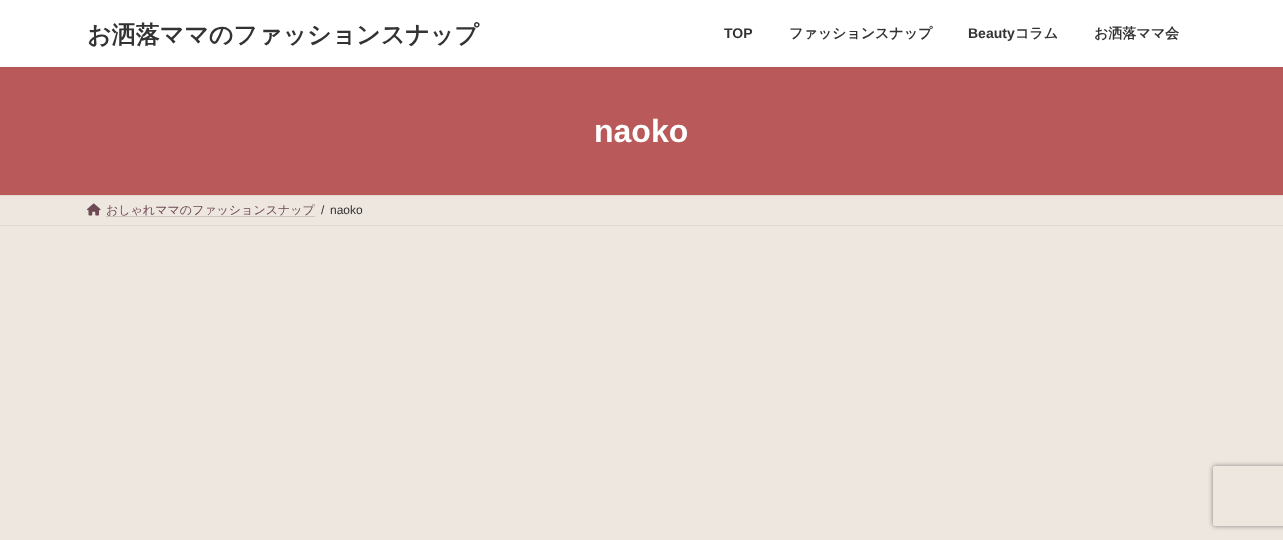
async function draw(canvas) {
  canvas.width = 1283
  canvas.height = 540
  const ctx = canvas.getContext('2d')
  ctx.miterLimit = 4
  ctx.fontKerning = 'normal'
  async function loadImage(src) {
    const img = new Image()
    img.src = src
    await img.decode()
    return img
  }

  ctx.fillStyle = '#eee7e0'
  ctx.fillRect(0, 0, 1283, 540)
  ctx.fillStyle = '#ba5959'
  ctx.fillRect(0, 67, 1283, 128)
  ctx.fillStyle = '#0000000d'
  ctx.filter = 'blur(1.5px)'
  ctx.beginPath()
  ctx.rect(0, 1, 1283, 67)
  ctx.fill()
  ctx.filter = 'none'
  ctx.fillStyle = '#fff'
  ctx.fillRect(0, 0, 1283, 67)
  ctx.font = 'bold 24px WenQuanYi Zen Hei'
  ctx.fillStyle = '#333'
  ctx.fillText('お洒落ママのファッションスナップ', 87, 43)
  ctx.font = 'bold 14px Liberation Sans'
  ctx.fillText('TOP', 724, 38)
  ctx.font = 'bold 14px WenQuanYi Zen Hei'
  ctx.fillText('ファッションスナップ', 789, 38)
  ctx.font = 'bold 14px Liberation Sans'
  ctx.fillText('Beauty', 968, 38)
  ctx.font = 'bold 14px WenQuanYi Zen Hei'
  ctx.fillText('コラム', 1015, 38)
  ctx.fillText('お洒落ママ会', 1094, 38)
  ctx.font = 'bold 32px Liberation Sans'
  ctx.fillStyle = '#fff'
  ctx.fillText('naoko', 594, 142)
  ctx.fillStyle = '#e0d9d3'
  ctx.fillRect(0, 195, 1283, 1)
  ctx.fillRect(0, 225, 1283, 1)
  ctx.drawImage(await loadImage('image0.png'), 87, 203, 14, 13)
  ctx.font = '500 12px WenQuanYi Zen Hei'
  ctx.fillStyle = '#6e4a55'
  ctx.fillText('おしゃれママのファッションスナップ', 106, 214)
  ctx.beginPath()
  ctx.moveTo(106.5, 216.5)
  ctx.lineTo(315, 216.5)
  ctx.strokeStyle = '#a7a29d'
  ctx.setLineDash([1, 1])
  ctx.stroke()
  ctx.font = '12px Liberation Sans'
  ctx.fillStyle = '#333'
  ctx.fillText('/', 321, 214)
  ctx.fillText('naoko', 330, 214)
  ctx.save()
  ctx.beginPath()
  ctx.moveTo(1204, 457)
  ctx.lineTo(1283, 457)
  ctx.lineTo(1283, 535)
  ctx.lineTo(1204, 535)
  ctx.closePath()
  ctx.moveTo(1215, 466)
  ctx.lineTo(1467, 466)
  ctx.bezierCurveTo(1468, 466, 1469, 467, 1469, 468)
  ctx.lineTo(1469, 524)
  ctx.bezierCurveTo(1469, 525, 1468, 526, 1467, 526)
  ctx.lineTo(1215, 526)
  ctx.bezierCurveTo(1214, 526, 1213, 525, 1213, 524)
  ctx.lineTo(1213, 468)
  ctx.bezierCurveTo(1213, 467, 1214, 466, 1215, 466)
  ctx.closePath()
  ctx.clip('evenodd')
  ctx.fillStyle = '#808080'
  ctx.filter = 'blur(2.5px)'
  ctx.beginPath()
  ctx.roundRect(1213, 466, 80, 60, 2)
  ctx.fill()
  ctx.filter = 'none'
  ctx.restore()
}

draw(document.querySelector('canvas'))
